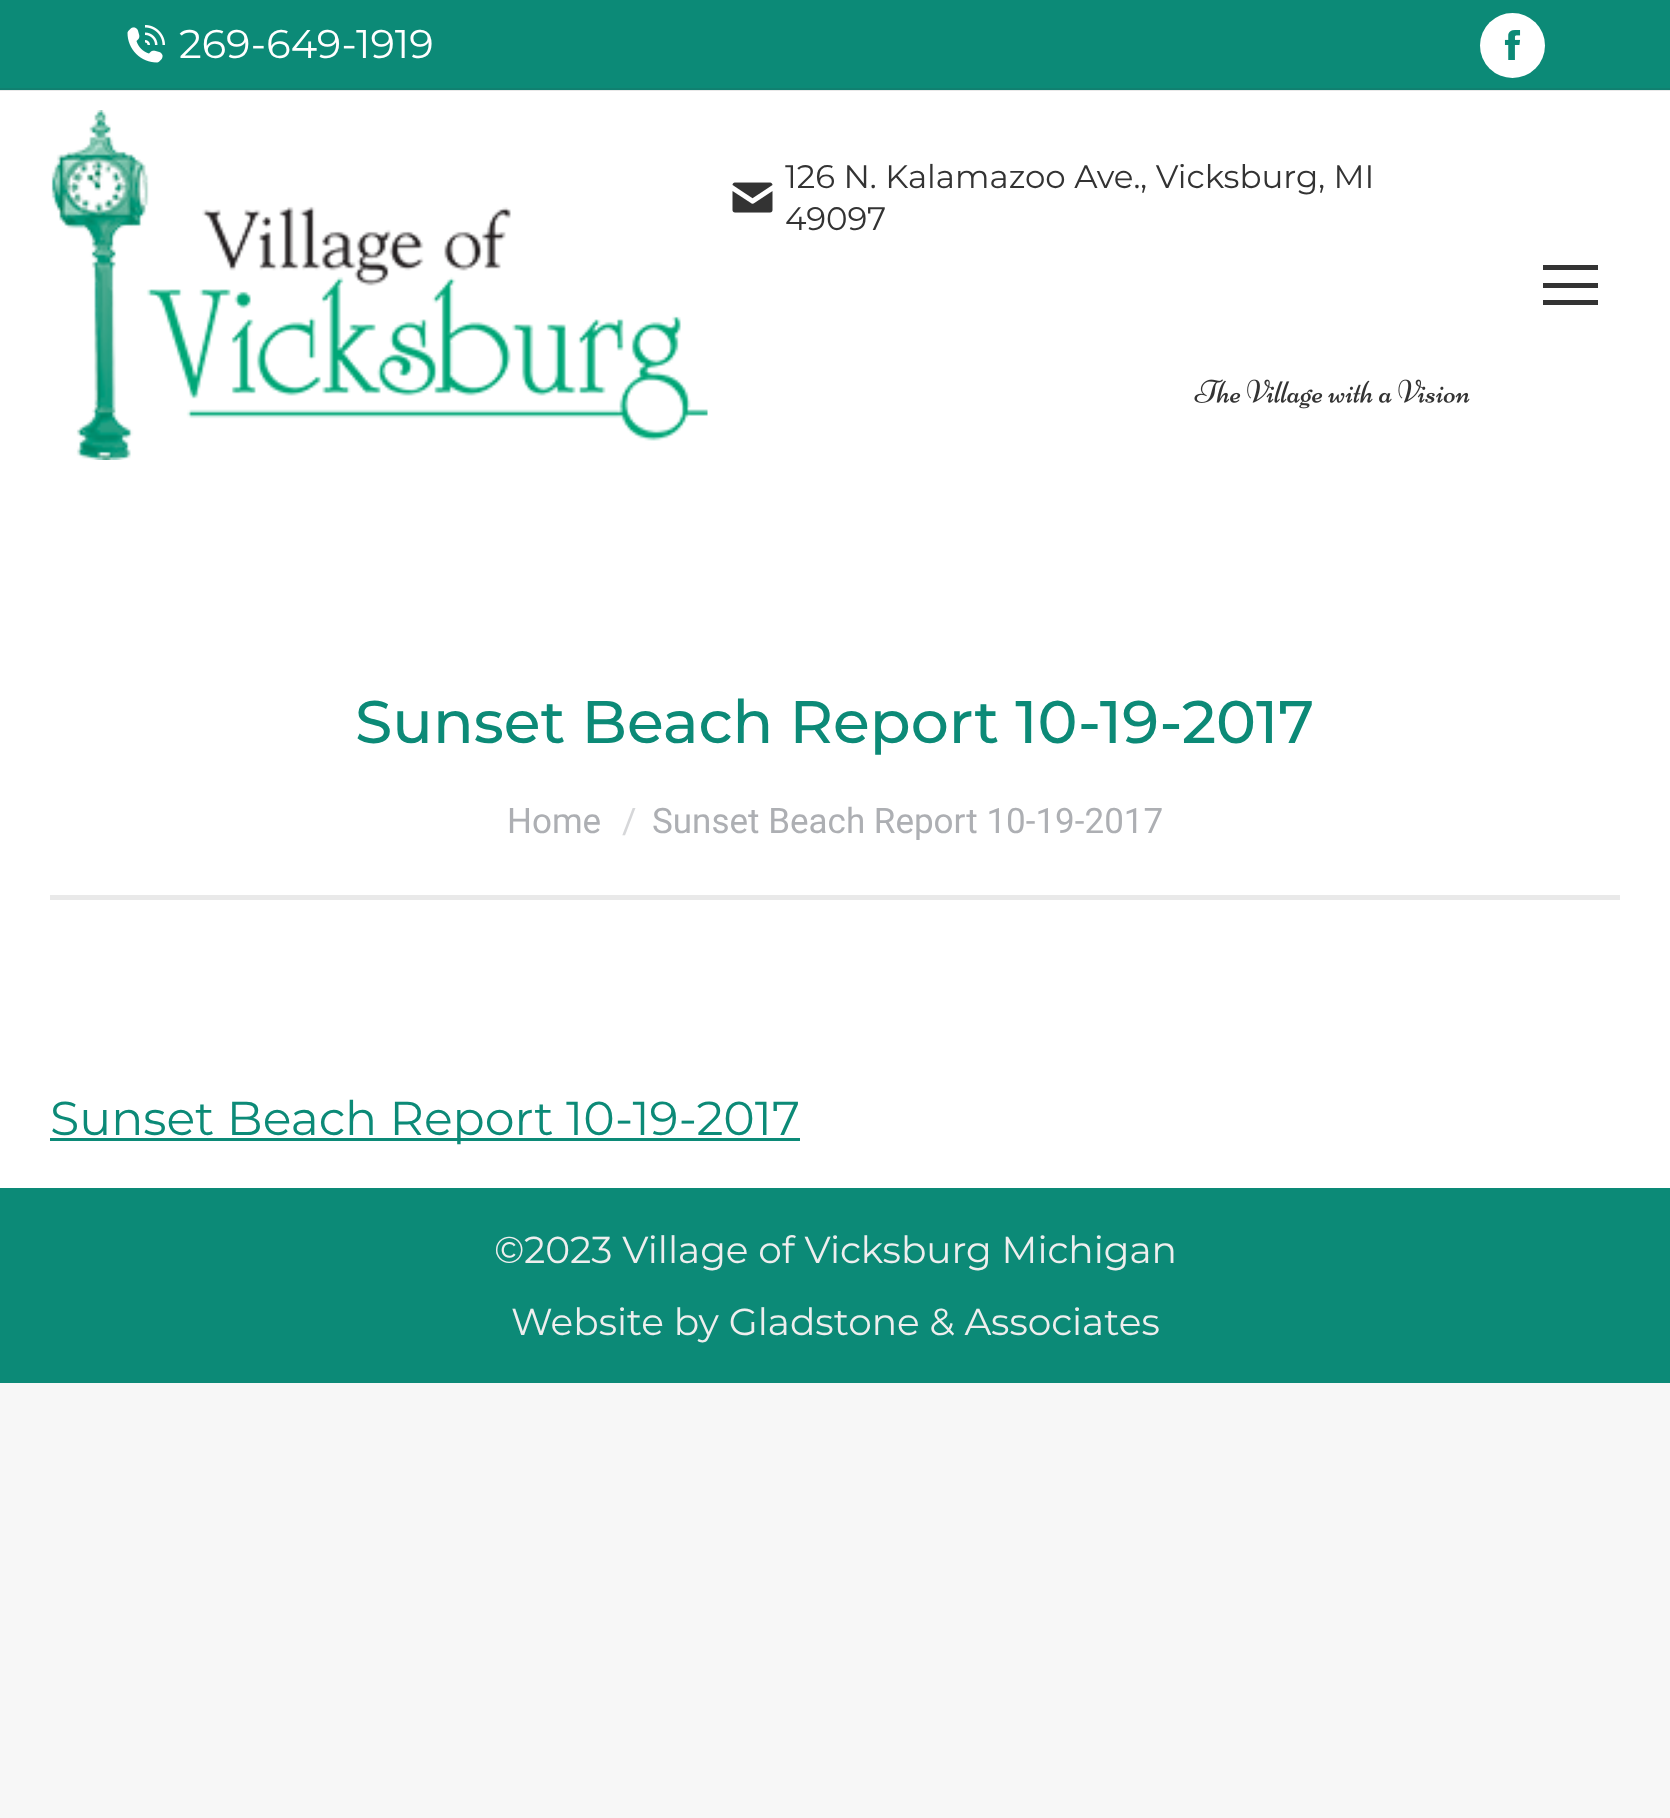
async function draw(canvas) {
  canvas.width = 1670
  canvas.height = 1818
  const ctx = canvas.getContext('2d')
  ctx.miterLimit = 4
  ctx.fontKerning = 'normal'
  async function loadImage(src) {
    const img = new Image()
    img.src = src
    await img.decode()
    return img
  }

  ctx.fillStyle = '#f7f7f7'
  ctx.fillRect(0, 0, 1670, 1818)
  ctx.fillStyle = '#fff'
  ctx.fillRect(0, 91, 1670, 1097)
  ctx.fillStyle = '#e9e9e9'
  ctx.fillRect(0, 90, 1670, 1)
  ctx.fillStyle = '#0c8a77'
  ctx.fillRect(0, 0, 1670, 88)
  ctx.fillStyle = '#108070'
  ctx.fillRect(0, 88, 1670, 2)
  ctx.drawImage(await loadImage('image0.png'), 127, 25, 38, 38)
  ctx.font = '40px Montserrat'
  ctx.fillStyle = '#fff'
  ctx.fillText('269-649-1919', 179, 58)
  ctx.beginPath()
  ctx.arc(1512.5, 45.5, 32.5, 0, 2 * Math.PI)
  ctx.fill()
  ctx.drawImage(await loadImage('image1.png'), 1504, 30, 17, 30)
  ctx.drawImage(await loadImage('image2.png'), 51, 110, 657, 350)
  ctx.drawImage(await loadImage('image3.png'), 732, 182, 41, 31)
  ctx.font = '32.5px Montserrat'
  ctx.fillStyle = '#333'
  ctx.fillText('126 N. Kalamazoo Ave., Vicksburg, MI', 785, 188)
  ctx.fillText('49097', 785, 230)
  ctx.drawImage(await loadImage('image4.png'), 1194, 379, 276, 30)
  ctx.fillRect(1543, 265, 55, 5)
  ctx.fillRect(1543, 283, 55, 5)
  ctx.fillRect(1543, 300, 55, 5)
  ctx.font = '500 60px Montserrat'
  ctx.fillStyle = '#0c8a77'
  ctx.fillText('Sunset Beach Report 10-19-2017', 355, 743)
  ctx.font = '35px Roboto'
  ctx.fillStyle = '#adafb3'
  ctx.fillText('Home', 507, 833)
  ctx.fillStyle = '#d6d7d9'
  ctx.fillText('/', 622, 833)
  ctx.fillStyle = '#adafb3'
  ctx.fillText('Sunset Beach Report 10-19-2017', 652, 833)
  ctx.fillStyle = '#e9e9e9'
  ctx.fillRect(50, 895, 1570, 5)
  ctx.fillStyle = '#0c8a77'
  ctx.fillRect(50, 1138, 750, 3)
  ctx.font = '47.5px Montserrat'
  ctx.fillText('Sunset Beach Report 10-19-2017', 50, 1135)
  ctx.fillRect(0, 1188, 1670, 195)
  ctx.font = '37.5px Montserrat'
  ctx.fillStyle = '#eee'
  ctx.fillText('©2023 Village of Vicksburg Michigan', 494, 1263)
  ctx.fillText('Website by Gladstone & Associates', 511, 1335)
}

draw(document.querySelector('canvas'))
